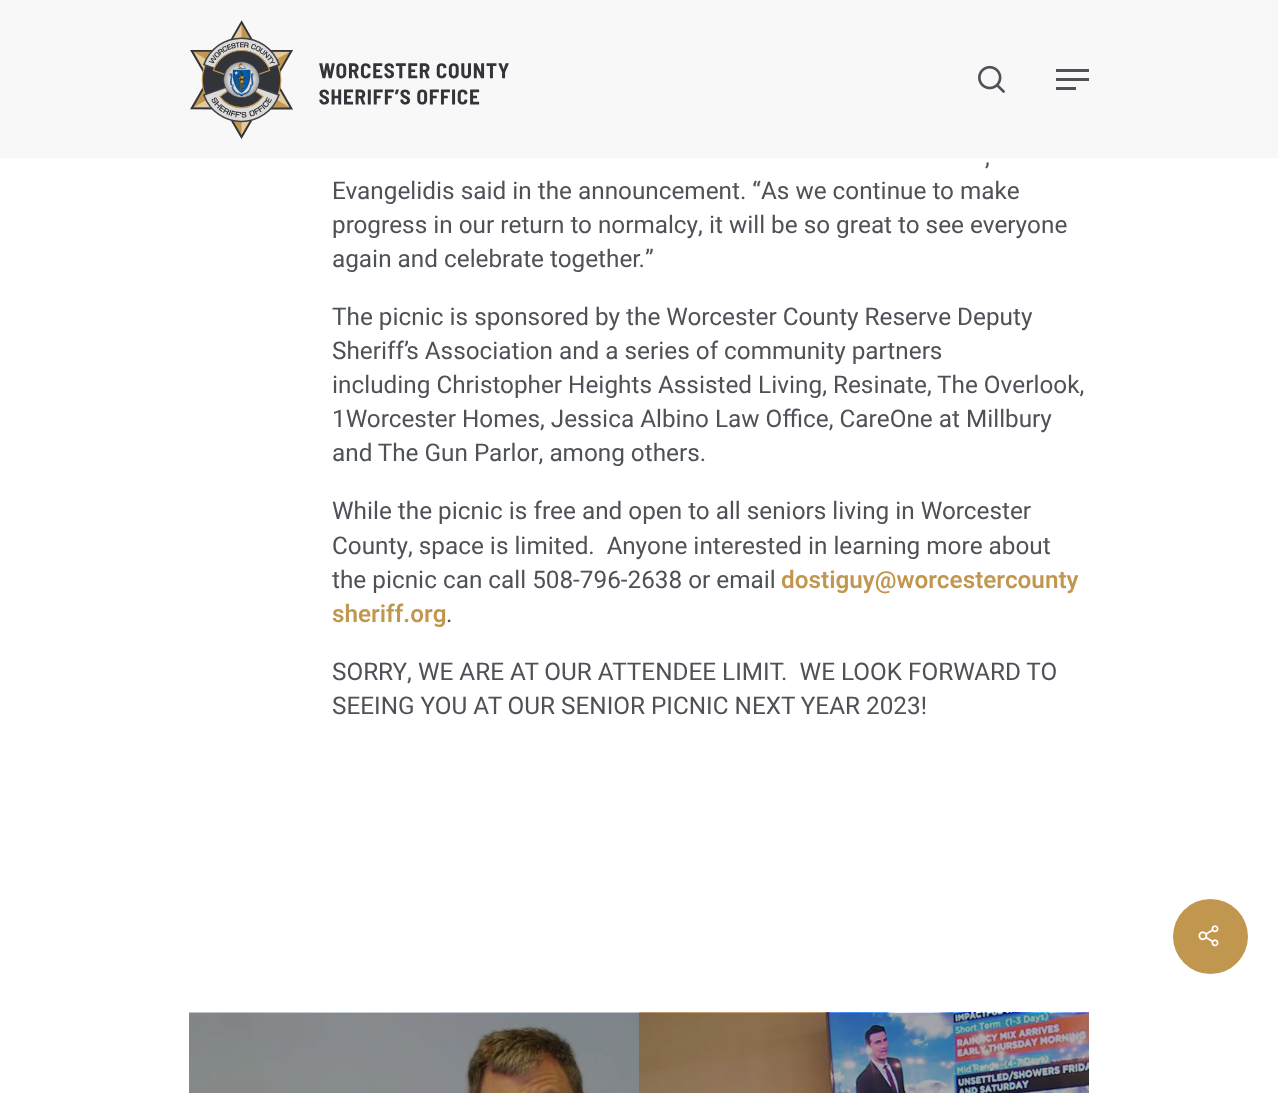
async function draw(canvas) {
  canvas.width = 1278
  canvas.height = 1093
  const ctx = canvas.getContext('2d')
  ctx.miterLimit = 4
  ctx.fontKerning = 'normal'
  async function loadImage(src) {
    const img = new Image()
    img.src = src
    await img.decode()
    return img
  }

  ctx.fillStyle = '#fff'
  ctx.fillRect(0, 0, 1278, 1093)
  ctx.fillStyle = '#f8f8f8'
  ctx.fillRect(0, 0, 1278, 158)
  ctx.drawImage(await loadImage('image0.png'), 190, 20, 319, 119)
  ctx.drawImage(await loadImage('image1.png'), 978, 65, 27, 28)
  ctx.fillStyle = '#4e5157'
  ctx.fillRect(1056, 69, 33, 3)
  ctx.fillRect(1056, 87, 20, 3)
  ctx.fillRect(1056, 78, 33, 3)
  ctx.font = '24.3px Heebo'
  ctx.fillText(',', 985, 165)
  ctx.fillText('Evangelidis said in the announcement. “As we continue to make', 332, 199)
  ctx.fillText('progress in our return to normalcy, it will be so great to see everyone', 332, 233)
  ctx.fillText('again and celebrate together.”', 332, 267)
  ctx.fillText('The picnic is sponsored by the Worcester County Reserve Deputy', 332, 325)
  ctx.fillText('Sheriff’s Association and a series of community partners', 332, 359)
  ctx.fillText('including Christopher Heights Assisted Living, Resinate, The Overlook,', 332, 393)
  ctx.fillText('1Worcester Homes, Jessica Albino Law Office, CareOne at Millbury', 332, 427)
  ctx.fillText('and The Gun Parlor, among others.', 332, 461)
  ctx.fillText('While the picnic is free and open to all seniors living in Worcester', 332, 519)
  ctx.fillText('County, space is limited.  Anyone interested in learning more about', 332, 554)
  ctx.fillText('the picnic can call 508-796-2638 or email', 332, 588)
  ctx.font = '600 24.3px Heebo'
  ctx.fillStyle = '#c1964e'
  ctx.fillText('dostiguy@worcestercounty', 781, 588)
  ctx.fillText('sheriff.org', 332, 622)
  ctx.font = '24.3px Heebo'
  ctx.fillStyle = '#4e5157'
  ctx.fillText('.', 446, 622)
  ctx.fillText('SORRY, WE ARE AT OUR ATTENDEE LIMIT.  WE LOOK FORWARD TO', 332, 680)
  ctx.fillText('SEEING YOU AT OUR SENIOR PICNIC NEXT YEAR 2023!', 332, 714)
  ctx.drawImage(await loadImage('image2.png'), 189, 1012, 450, 81)
  ctx.drawImage(await loadImage('image3.png'), 639, 1012, 450, 81)
  ctx.fillStyle = '#c1964e'
  ctx.beginPath()
  ctx.arc(1210.5, 936.5, 37.5, 0, 2 * Math.PI)
  ctx.fill()
  ctx.drawImage(await loadImage('image4.png'), 1198, 925, 21, 22)
}

draw(document.querySelector('canvas'))
